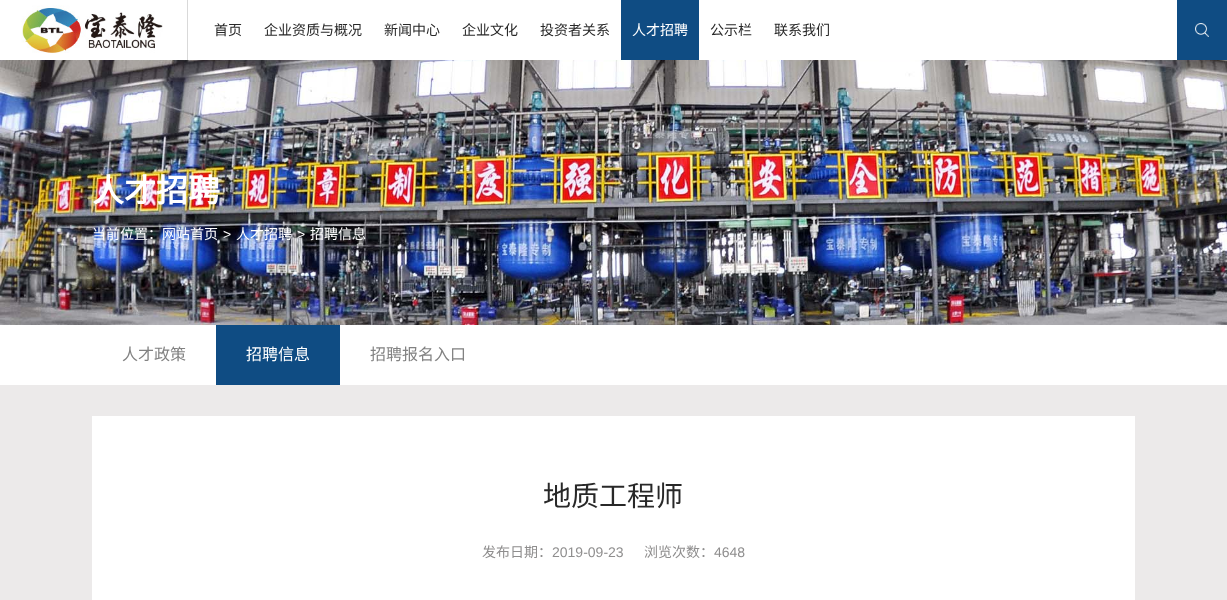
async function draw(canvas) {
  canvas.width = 1227
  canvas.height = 600
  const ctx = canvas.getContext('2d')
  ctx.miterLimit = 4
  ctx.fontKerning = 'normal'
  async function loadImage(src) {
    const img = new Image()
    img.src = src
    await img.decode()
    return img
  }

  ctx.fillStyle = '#fff'
  ctx.fillRect(0, 0, 1227, 600)
  ctx.fillStyle = '#d9d9d9'
  ctx.fillRect(187, 0, 1, 60)
  ctx.drawImage(await loadImage('image0.png'), 21, 5, 142, 48)
  ctx.font = '14px Noto Sans CJK SC'
  ctx.fillStyle = '#282828'
  ctx.fillText('首页', 214, 35)
  ctx.fillText('企业资质与概况', 264, 35)
  ctx.fillText('新闻中心', 384, 35)
  ctx.fillText('企业文化', 462, 35)
  ctx.fillText('投资者关系', 540, 35)
  ctx.fillStyle = '#0f4c83'
  ctx.fillRect(621, 0, 78, 60)
  ctx.fillStyle = '#fff'
  ctx.fillText('人才招聘', 632, 35)
  ctx.fillStyle = '#282828'
  ctx.fillText('公示栏', 710, 35)
  ctx.fillText('联系我们', 774, 35)
  ctx.fillStyle = '#0f4c83'
  ctx.fillRect(1177, 0, 50, 60)
  ctx.drawImage(await loadImage('image1.png'), 1195, 23, 14, 14)
  ctx.drawImage(await loadImage('image2.png'), 0, 60, 1227, 265)
  ctx.font = 'bold 32px Noto Sans CJK SC'
  ctx.fillStyle = '#fff'
  ctx.fillText('人才招聘', 92, 202)
  ctx.font = '14px Noto Sans CJK SC'
  ctx.fillText('当前位置：网站首页', 92, 239)
  ctx.font = '14px Liberation Sans'
  ctx.fillText('>', 223, 239)
  ctx.font = '14px Noto Sans CJK SC'
  ctx.fillText('人才招聘', 236, 239)
  ctx.font = '14px Liberation Sans'
  ctx.fillText('>', 297, 239)
  ctx.font = '14px Noto Sans CJK SC'
  ctx.fillText('招聘信息', 310, 239)
  ctx.fillStyle = '#eceaea'
  ctx.fillRect(0, 385, 1227, 215)
  ctx.font = '16px Noto Sans CJK SC'
  ctx.fillStyle = '#828282'
  ctx.fillText('人才政策', 122, 360)
  ctx.fillStyle = '#0f4c83'
  ctx.fillRect(216, 325, 124, 60)
  ctx.fillStyle = '#fff'
  ctx.fillText('招聘信息', 246, 360)
  ctx.fillStyle = '#828282'
  ctx.fillText('招聘报名入口', 370, 360)
  ctx.fillStyle = '#fff'
  ctx.fillRect(92, 416, 1043, 184)
  ctx.font = '28px Noto Sans CJK SC'
  ctx.fillStyle = '#282828'
  ctx.fillText('地质工程师', 543, 506)
  ctx.font = '14px Noto Sans CJK SC'
  ctx.fillStyle = '#8f8e8e'
  ctx.fillText('发布日期：', 482, 557)
  ctx.font = '14px Liberation Sans'
  ctx.fillText('2019-09-23', 552, 557)
  ctx.font = '14px Noto Sans CJK SC'
  ctx.fillText('浏览次数：', 644, 557)
  ctx.font = '14px Liberation Sans'
  ctx.fillText('4648', 714, 557)
}

draw(document.querySelector('canvas'))
